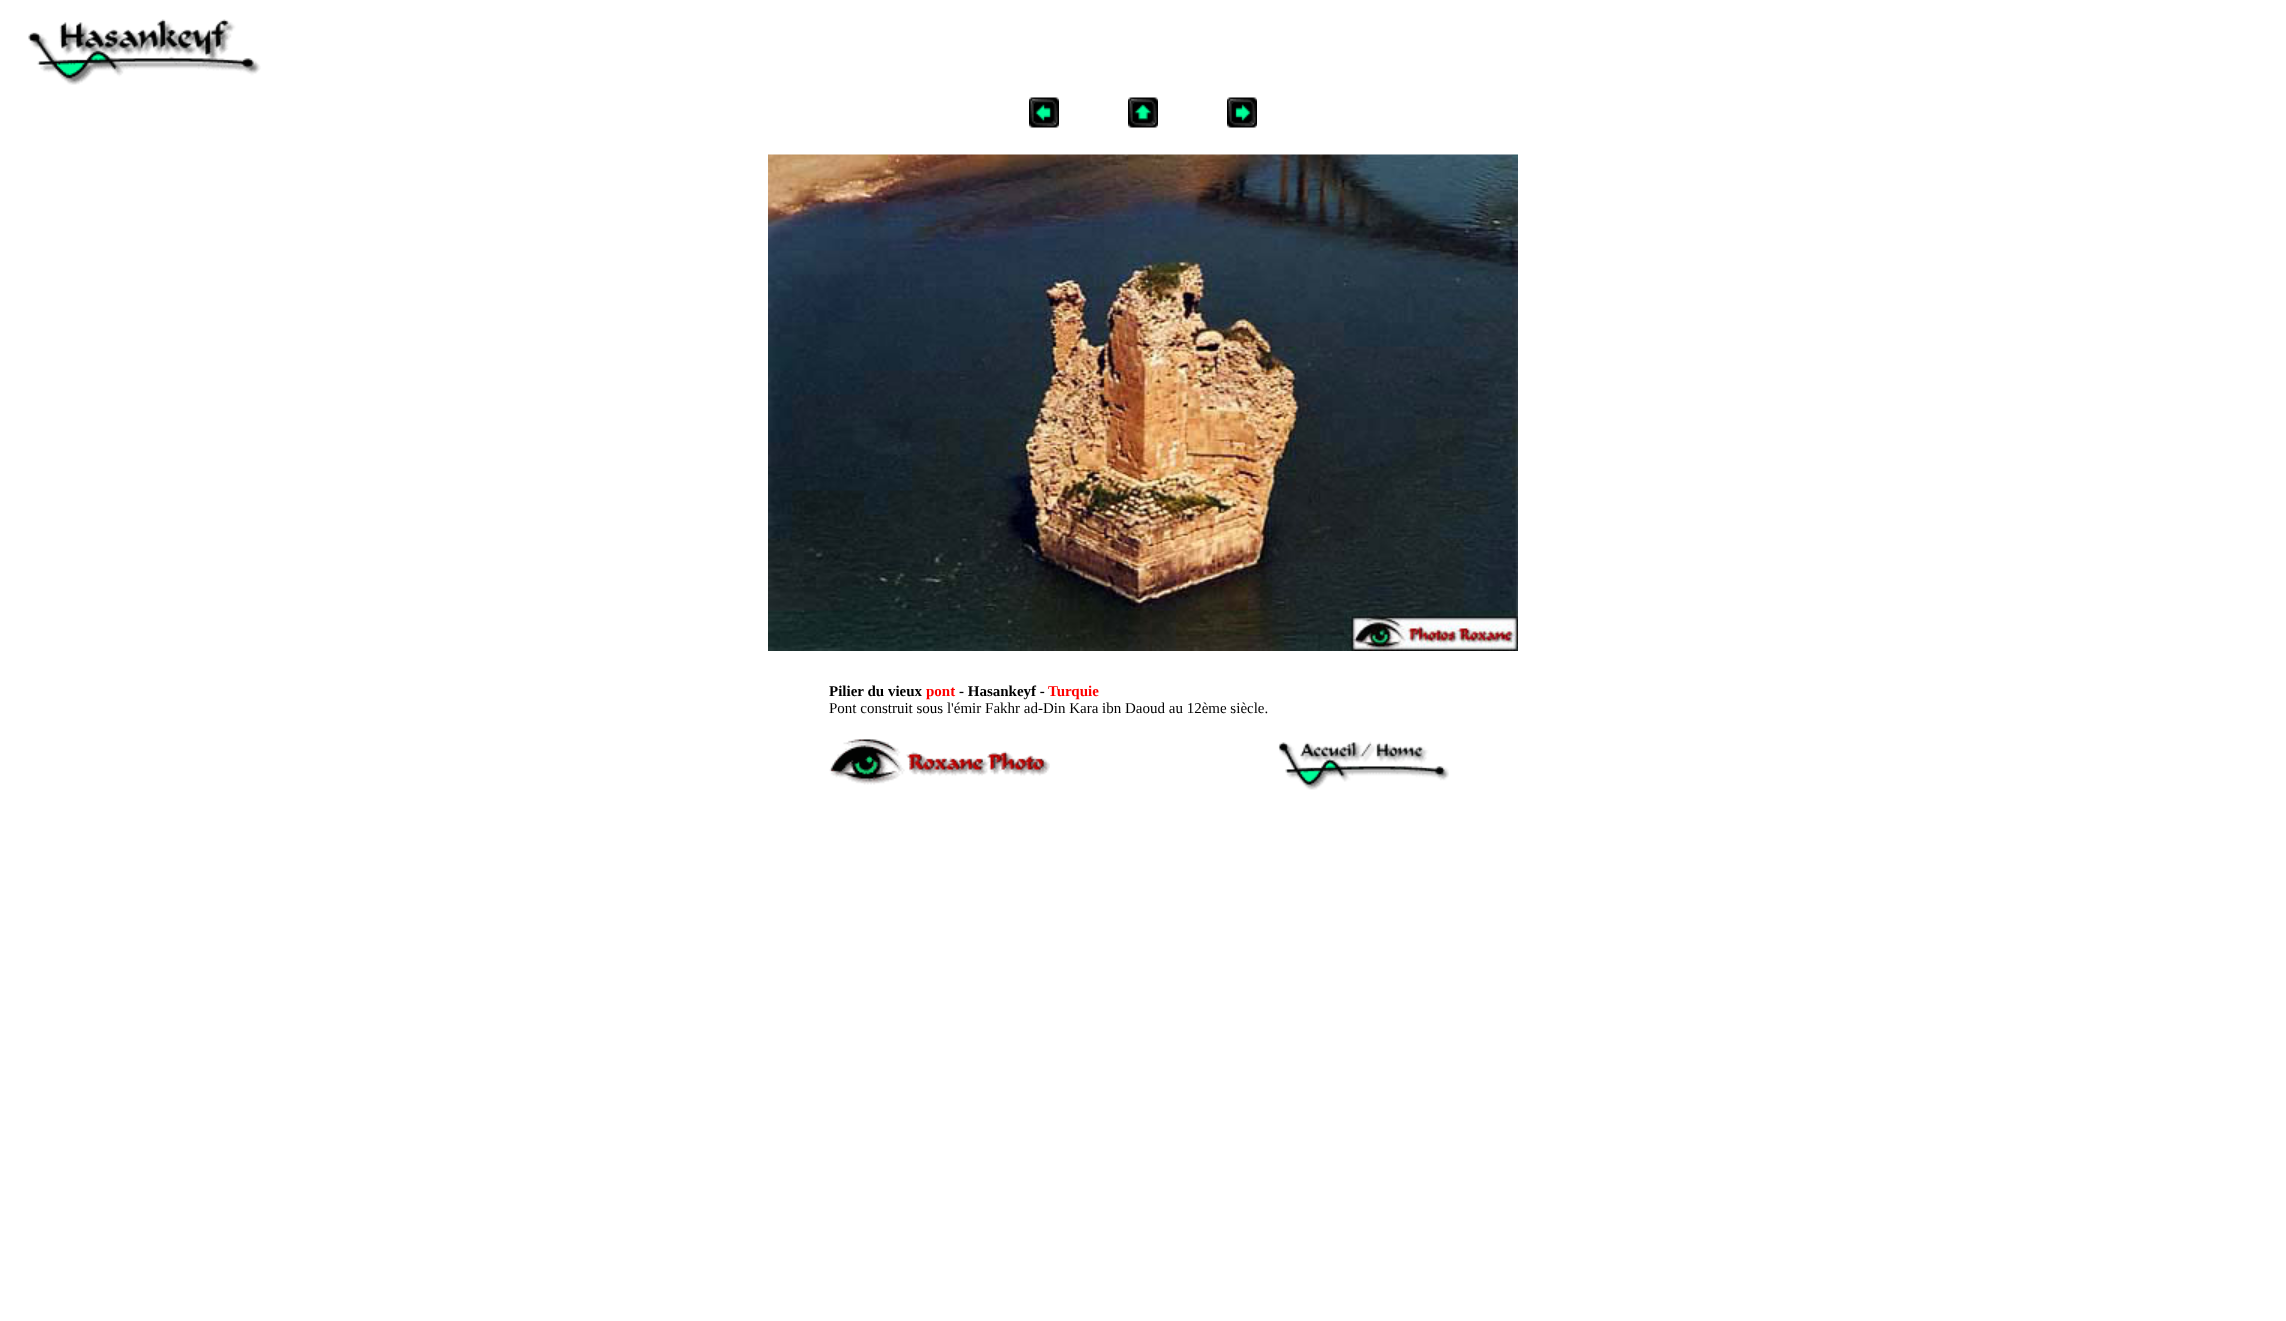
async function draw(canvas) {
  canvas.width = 2286
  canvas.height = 1321
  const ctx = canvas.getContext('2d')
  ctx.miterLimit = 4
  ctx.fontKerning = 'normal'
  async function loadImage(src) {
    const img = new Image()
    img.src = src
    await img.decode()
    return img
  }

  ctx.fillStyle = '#fff'
  ctx.fillRect(0, 0, 2286, 1321)
  ctx.drawImage(await loadImage('image0.png'), 28, 19, 233, 66)
  ctx.drawImage(await loadImage('image1.png'), 1029, 97, 30, 31)
  ctx.drawImage(await loadImage('image2.png'), 1128, 97, 30, 31)
  ctx.drawImage(await loadImage('image3.png'), 1227, 97, 30, 31)
  ctx.drawImage(await loadImage('image4.png'), 768, 154, 750, 497)
  ctx.font = 'bold 15px Liberation Serif'
  ctx.fillStyle = '#000'
  ctx.fillText('Pilier du vieux', 829, 696)
  ctx.fillStyle = '#f00'
  ctx.fillText('pont', 926, 696)
  ctx.fillStyle = '#000'
  ctx.fillText('- Hasankeyf -', 959, 696)
  ctx.fillStyle = '#f00'
  ctx.fillText('Turquie', 1048, 696)
  ctx.font = '15px Liberation Serif'
  ctx.fillStyle = '#000'
  ctx.fillText('Pont construit sous l\'émir Fakhr ad-Din Kara ibn Daoud au 12ème siècle.', 829, 713)
  ctx.drawImage(await loadImage('image5.png'), 829, 739, 221, 46)
  ctx.drawImage(await loadImage('image6.png'), 1278, 741, 171, 49)
}

draw(document.querySelector('canvas'))
